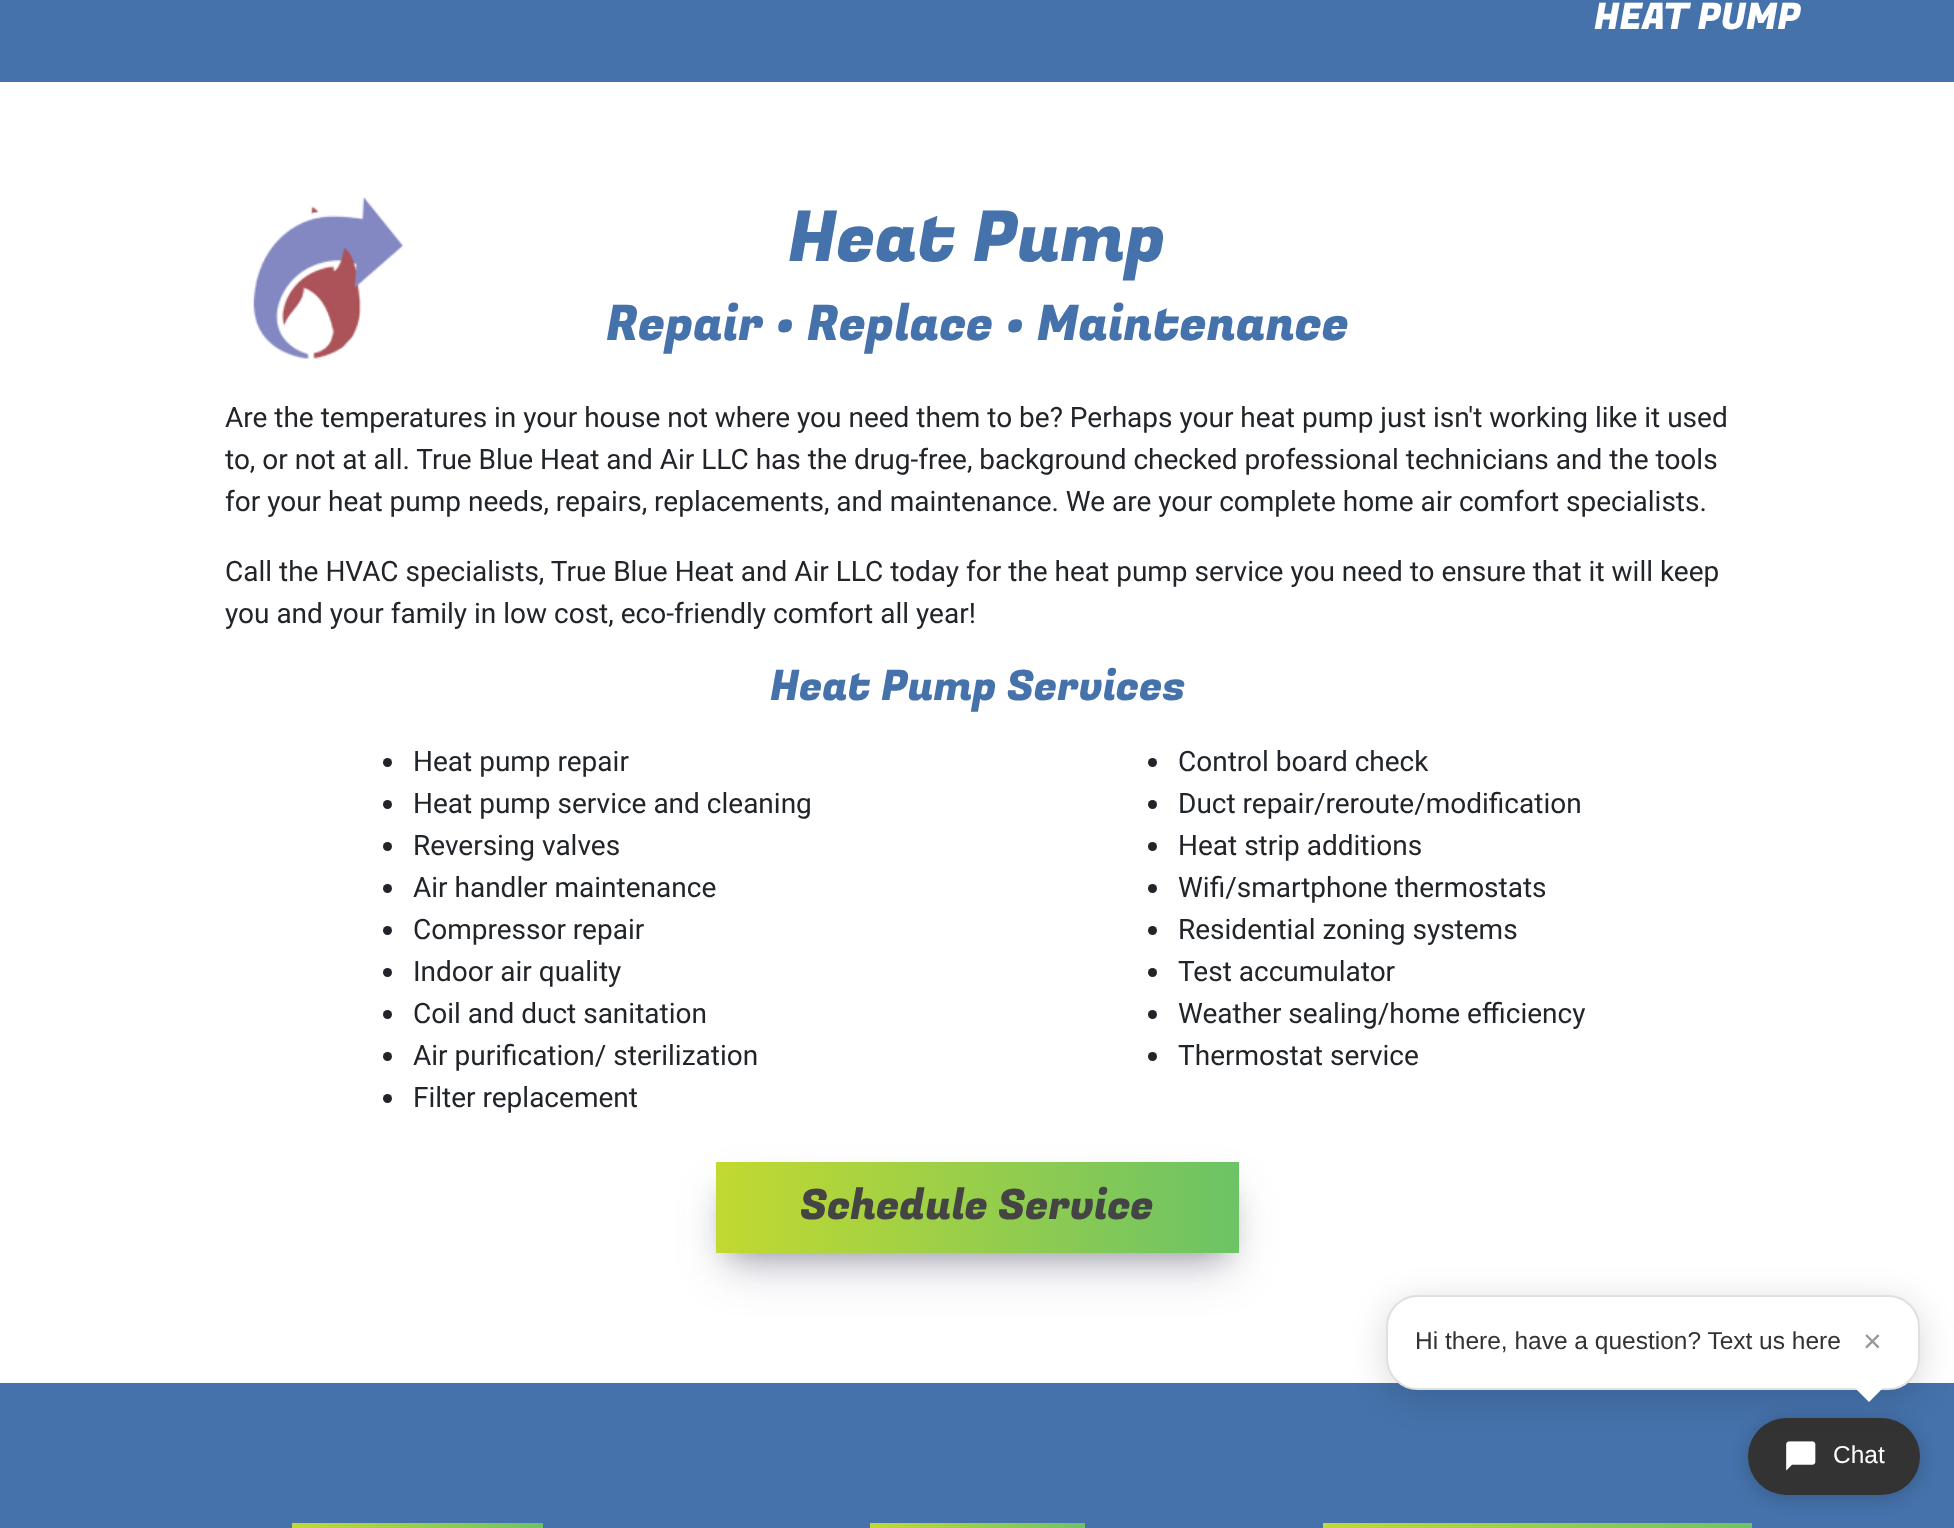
async function draw(canvas) {
  canvas.width = 1954
  canvas.height = 1528
  const ctx = canvas.getContext('2d')
  ctx.miterLimit = 4
  ctx.fontKerning = 'normal'
  async function loadImage(src) {
    const img = new Image()
    img.src = src
    await img.decode()
    return img
  }
  let gradient

  ctx.fillStyle = '#fff'
  ctx.fillRect(0, 0, 1954, 1528)
  ctx.fillStyle = '#4572ab'
  ctx.fillRect(0, 0, 1954, 82)
  ctx.font = '36.5px Fugaz One'
  ctx.fillStyle = '#fff'
  ctx.fillText('HEAT PUMP', 1594, 29)
  ctx.drawImage(await loadImage('image0.png'), 253, 197, 150, 162)
  ctx.font = '70px Fugaz One'
  ctx.fillStyle = '#4572ab'
  ctx.fillText('Heat Pump', 788, 261)
  ctx.font = '49px Fugaz One'
  ctx.fillText('Repair • Replace • Maintenance', 606, 340)
  ctx.font = '28px Roboto'
  ctx.fillStyle = '#212529'
  ctx.fillText('Are the temperatures in your house not where you need them to be? Perhaps your heat pump just isn\'t working like it used', 225, 427)
  ctx.fillText('to, or not at all. True Blue Heat and Air LLC has the drug-free, background checked professional technicians and the tools', 225, 469)
  ctx.fillText('for your heat pump needs, repairs, replacements, and maintenance. We are your complete home air comfort specialists.', 225, 511)
  ctx.fillText('Call the HVAC specialists, True Blue Heat and Air LLC today for the heat pump service you need to ensure that it will keep', 225, 581)
  ctx.fillText('you and your family in low cost, eco-friendly comfort all year!', 225, 623)
  ctx.font = '42px Fugaz One'
  ctx.fillStyle = '#4572ab'
  ctx.fillText('Heat Pump Services', 770, 700)
  ctx.fillStyle = '#212529'
  ctx.beginPath()
  ctx.arc(387.5, 762.5, 4.5, 0, 2 * Math.PI)
  ctx.fill()
  ctx.font = '28px Roboto'
  ctx.fillText('Heat pump repair', 413, 771)
  ctx.beginPath()
  ctx.arc(1152.5, 762.5, 4.5, 0, 2 * Math.PI)
  ctx.fill()
  ctx.fillText('Control board check', 1178, 771)
  ctx.beginPath()
  ctx.arc(387.5, 804.5, 4.5, 0, 2 * Math.PI)
  ctx.fill()
  ctx.fillText('Heat pump service and cleaning', 413, 813)
  ctx.beginPath()
  ctx.arc(1152.5, 804.5, 4.5, 0, 2 * Math.PI)
  ctx.fill()
  ctx.fillText('Duct repair/reroute/modification', 1178, 813)
  ctx.beginPath()
  ctx.arc(387.5, 846.5, 4.5, 0, 2 * Math.PI)
  ctx.fill()
  ctx.fillText('Reversing valves', 413, 855)
  ctx.beginPath()
  ctx.arc(1152.5, 846.5, 4.5, 0, 2 * Math.PI)
  ctx.fill()
  ctx.fillText('Heat strip additions', 1178, 855)
  ctx.beginPath()
  ctx.arc(387.5, 888.5, 4.5, 0, 2 * Math.PI)
  ctx.fill()
  ctx.fillText('Air handler maintenance', 413, 897)
  ctx.beginPath()
  ctx.arc(1152.5, 888.5, 4.5, 0, 2 * Math.PI)
  ctx.fill()
  ctx.fillText('Wifi/smartphone thermostats', 1178, 897)
  ctx.beginPath()
  ctx.arc(387.5, 930.5, 4.5, 0, 2 * Math.PI)
  ctx.fill()
  ctx.fillText('Compressor repair', 413, 939)
  ctx.beginPath()
  ctx.arc(1152.5, 930.5, 4.5, 0, 2 * Math.PI)
  ctx.fill()
  ctx.fillText('Residential zoning systems', 1178, 939)
  ctx.beginPath()
  ctx.arc(387.5, 972.5, 4.5, 0, 2 * Math.PI)
  ctx.fill()
  ctx.fillText('Indoor air quality', 413, 981)
  ctx.beginPath()
  ctx.arc(1152.5, 972.5, 4.5, 0, 2 * Math.PI)
  ctx.fill()
  ctx.fillText('Test accumulator', 1178, 981)
  ctx.beginPath()
  ctx.arc(387.5, 1014.5, 4.5, 0, 2 * Math.PI)
  ctx.fill()
  ctx.fillText('Coil and duct sanitation', 413, 1023)
  ctx.beginPath()
  ctx.arc(1152.5, 1014.5, 4.5, 0, 2 * Math.PI)
  ctx.fill()
  ctx.fillText('Weather sealing/home efficiency', 1178, 1023)
  ctx.beginPath()
  ctx.arc(387.5, 1056.5, 4.5, 0, 2 * Math.PI)
  ctx.fill()
  ctx.fillText('Air purification/ sterilization', 413, 1065)
  ctx.beginPath()
  ctx.arc(1152.5, 1056.5, 4.5, 0, 2 * Math.PI)
  ctx.fill()
  ctx.fillText('Thermostat service', 1178, 1065)
  ctx.beginPath()
  ctx.arc(387.5, 1098.5, 4.5, 0, 2 * Math.PI)
  ctx.fill()
  ctx.fillText('Filter replacement', 413, 1107)
  ctx.fillStyle = '#0000004d'
  ctx.filter = 'blur(14px)'
  ctx.beginPath()
  ctx.rect(730, 1190, 495, 63)
  ctx.fill()
  ctx.filter = 'none'
  ctx.fillStyle = '#32325d40'
  ctx.filter = 'blur(23.5px)'
  ctx.beginPath()
  ctx.rect(725, 1194, 505, 73)
  ctx.fill()
  ctx.filter = 'none'
  gradient = ctx.createLinearGradient(716, 1208, 1239, 1208)
  gradient.addColorStop(0, '#c2d930')
  gradient.addColorStop(0.99, '#6dc365')
  ctx.fillStyle = gradient
  ctx.fillRect(716, 1162, 523, 91)
  ctx.font = '42px Fugaz One'
  ctx.fillStyle = '#444'
  ctx.fillText('Schedule Service', 800, 1219)
  ctx.fillStyle = '#4572ab'
  ctx.fillRect(0, 1383, 1954, 145)
  gradient = ctx.createLinearGradient(292, 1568, 543, 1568)
  gradient.addColorStop(0, '#c2d930')
  gradient.addColorStop(0.99, '#6dc365')
  ctx.fillStyle = gradient
  ctx.fillRect(292, 1523, 251, 5)
  gradient = ctx.createLinearGradient(870, 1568, 1085, 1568)
  gradient.addColorStop(0, '#c2d930')
  gradient.addColorStop(0.99, '#6dc365')
  ctx.fillStyle = gradient
  ctx.fillRect(870, 1523, 215, 5)
  gradient = ctx.createLinearGradient(1323, 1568, 1752, 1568)
  gradient.addColorStop(0, '#c2d930')
  gradient.addColorStop(0.99, '#6dc365')
  ctx.fillStyle = gradient
  ctx.fillRect(1323, 1523, 429, 5)
  ctx.fillStyle = '#00000033'
  ctx.filter = 'blur(9px)'
  ctx.beginPath()
  ctx.roundRect(1748, 1421, 172, 77, 38.5)
  ctx.fill()
  ctx.filter = 'none'
  ctx.fillStyle = '#333'
  ctx.beginPath()
  ctx.roundRect(1748, 1418, 172, 77, 38.5)
  ctx.fill()
  ctx.drawImage(await loadImage('image1.png'), 1786, 1441, 30, 30)
  ctx.fillStyle = '#00000026'
  ctx.filter = 'blur(17.5px)'
  ctx.beginPath()
  ctx.roundRect(1386, 1302, 534, 95, 32)
  ctx.fill()
  ctx.filter = 'none'
  ctx.fillStyle = '#fff'
  ctx.beginPath()
  ctx.roundRect(1387, 1296, 532, 93, 31)
  ctx.fill()
  ctx.strokeStyle = '#e0e0e0'
  ctx.lineWidth = 2
  ctx.stroke()
  ctx.font = '24.5px Liberation Sans'
  ctx.fillStyle = '#333'
  ctx.fillText('Hi there, have a question? Text us here', 1415, 1349)
  ctx.font = '32px Liberation Sans'
  ctx.fillStyle = '#999'
  ctx.fillText('×', 1863, 1352)
  ctx.fillStyle = '#fff'
  ctx.beginPath()
  ctx.moveTo(1855, 1388)
  ctx.lineTo(1883, 1388)
  ctx.lineTo(1869, 1402)
  ctx.closePath()
  ctx.fill()
  ctx.font = '24.5px Liberation Sans'
  ctx.fillText('Chat', 1833, 1463)
}

draw(document.querySelector('canvas'))
